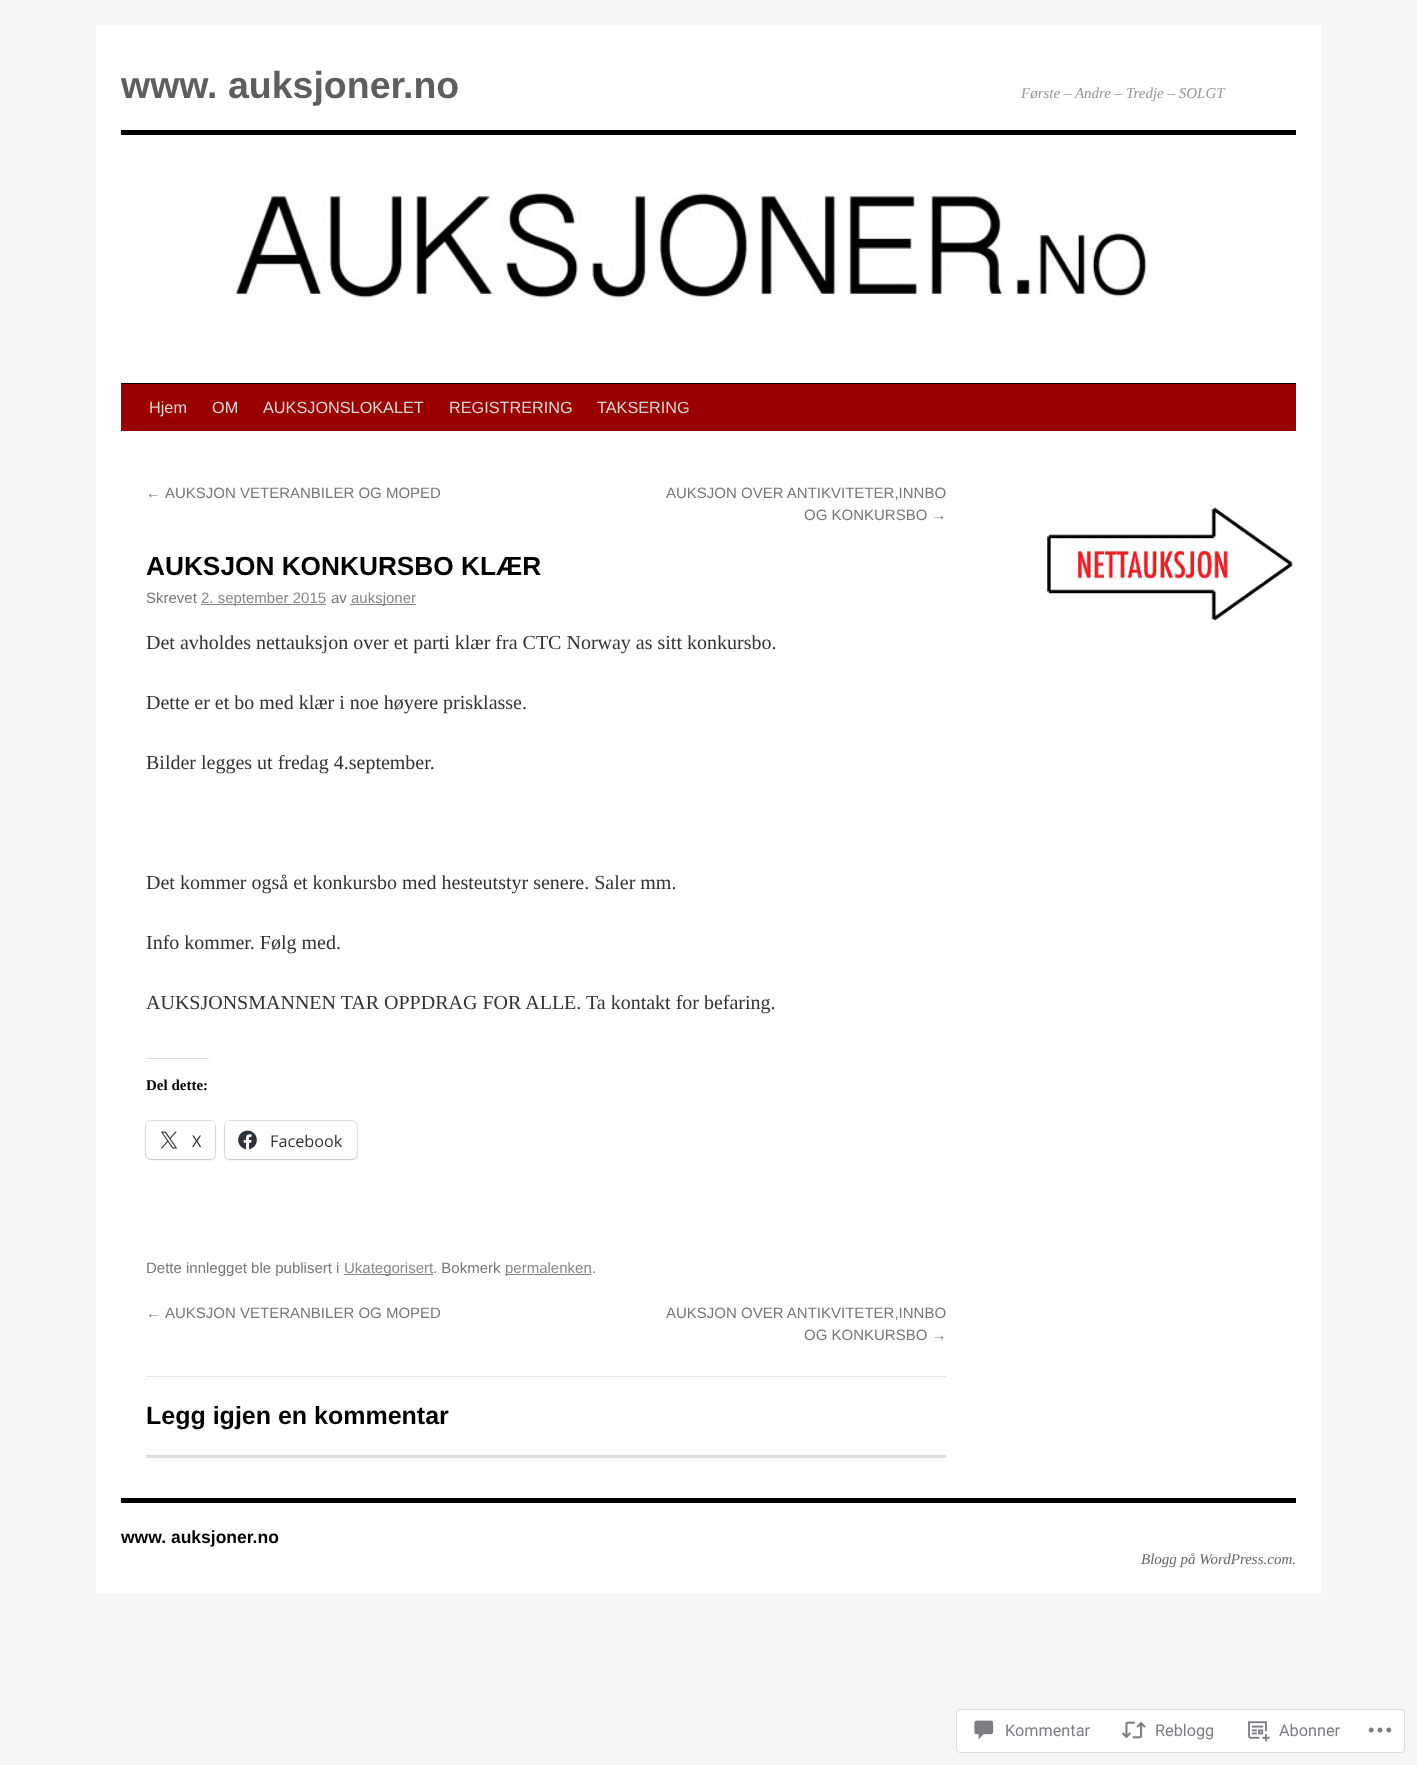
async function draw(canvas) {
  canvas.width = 1417
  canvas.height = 1765
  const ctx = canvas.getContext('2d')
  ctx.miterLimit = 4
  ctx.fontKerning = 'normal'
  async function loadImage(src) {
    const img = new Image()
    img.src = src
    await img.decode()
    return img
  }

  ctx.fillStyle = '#f6f6f6'
  ctx.fillRect(0, 0, 1417, 1765)
  ctx.fillStyle = '#fff'
  ctx.fillRect(96, 25, 1225, 1568)
  ctx.font = 'bold 37.5px Liberation Sans'
  ctx.fillStyle = '#5e5e5e'
  ctx.fillText('www. auksjoner.no', 121, 98)
  ctx.font = 'italic 15px Liberation Serif'
  ctx.fillStyle = '#969696'
  ctx.fillText('Første – Andre – Tredje – SOLGT', 1021, 98)
  ctx.fillStyle = '#000'
  ctx.fillRect(121, 130, 1175, 5)
  ctx.fillRect(121, 383, 1175, 1)
  ctx.drawImage(await loadImage('image0.png'), 233, 193, 914, 108)
  ctx.fillStyle = '#990100'
  ctx.fillRect(121, 384, 1175, 47)
  ctx.font = '16.25px Liberation Sans'
  ctx.fillStyle = '#d6d6d6'
  ctx.fillText('Hjem', 149, 413)
  ctx.fillText('OM', 212, 413)
  ctx.fillText('AUKSJONSLOKALET', 263, 413)
  ctx.fillText('REGISTRERING', 449, 413)
  ctx.fillText('TAKSERING', 597, 413)
  ctx.font = '15px Liberation Sans'
  ctx.fillStyle = '#777'
  ctx.fillText('←', 146, 498)
  ctx.fillText('AUKSJON VETERANBILER OG MOPED', 165, 498)
  ctx.fillText('AUKSJON OVER ANTIKVITETER,INNBO', 666, 498)
  ctx.fillText('OG KONKURSBO →', 804, 520)
  ctx.font = 'bold 26.25px Liberation Sans'
  ctx.fillStyle = '#000'
  ctx.fillText('AUKSJON KONKURSBO KLÆR', 146, 575)
  ctx.font = '15px Liberation Sans'
  ctx.fillStyle = '#777'
  ctx.fillText('Skrevet', 146, 603)
  ctx.fillStyle = '#888'
  ctx.fillRect(201, 604, 125, 1)
  ctx.fillText('2. september 2015', 201, 603)
  ctx.fillStyle = '#777'
  ctx.fillText('av', 331, 603)
  ctx.fillStyle = '#888'
  ctx.fillRect(350, 604, 66, 1)
  ctx.fillText('auksjoner', 351, 603)
  ctx.font = '20px Liberation Serif'
  ctx.fillStyle = '#333'
  ctx.fillText('Det avholdes nettauksjon over et parti klær fra CTC Norway as sitt konkursbo.', 146, 649)
  ctx.fillText('Dette er et bo med klær i noe høyere prisklasse.', 146, 709)
  ctx.fillText('Bilder legges ut fredag 4.september.', 146, 769)
  ctx.fillText('Det kommer også et konkursbo med hesteutstyr senere. Saler mm.', 146, 889)
  ctx.fillText('Info kommer. Følg med.', 146, 949)
  ctx.fillText('AUKSJONSMANNEN TAR OPPDRAG FOR ALLE. Ta kontakt for befaring.', 146, 1009)
  ctx.fillStyle = '#dcdcde'
  ctx.fillRect(146, 1058, 63, 1)
  ctx.font = 'bold 15px Liberation Serif'
  ctx.fillStyle = '#000'
  ctx.fillText('Del dette:', 146, 1090)
  ctx.beginPath()
  ctx.roundRect(145.5, 1120.5, 70, 39, 5.5)
  ctx.strokeStyle = '#e0e0e0'
  ctx.stroke()
  ctx.fillStyle = '#0000001f'
  ctx.filter = 'blur(1px)'
  ctx.beginPath()
  ctx.roundRect(146, 1123, 69, 37, 5)
  ctx.fill()
  ctx.filter = 'none'
  ctx.fillStyle = '#fff'
  ctx.beginPath()
  ctx.roundRect(146, 1121, 69, 38, 5)
  ctx.fill()
  ctx.drawImage(await loadImage('image1.png'), 160, 1131, 18, 18)
  ctx.font = '16.25px Open Sans'
  ctx.fillStyle = '#2c3338'
  ctx.fillText('X', 192, 1147)
  ctx.beginPath()
  ctx.roundRect(224.5, 1120.5, 133, 39, 5.5)
  ctx.stroke()
  ctx.fillStyle = '#0000001f'
  ctx.filter = 'blur(1px)'
  ctx.beginPath()
  ctx.roundRect(225, 1123, 131, 37, 5)
  ctx.fill()
  ctx.filter = 'none'
  ctx.fillStyle = '#fff'
  ctx.beginPath()
  ctx.roundRect(225, 1121, 131, 38, 5)
  ctx.fill()
  ctx.drawImage(await loadImage('image2.png'), 238, 1130, 19, 20)
  ctx.fillStyle = '#2c3338'
  ctx.fillText('Facebook', 270, 1147)
  ctx.font = '15px Liberation Sans'
  ctx.fillStyle = '#777'
  ctx.fillText('Dette innlegget ble publisert i', 146, 1273)
  ctx.fillStyle = '#888'
  ctx.fillRect(344, 1274, 89, 1)
  ctx.fillText('Ukategorisert', 344, 1273)
  ctx.fillStyle = '#777'
  ctx.fillText('. Bokmerk', 433, 1273)
  ctx.fillStyle = '#888'
  ctx.fillRect(505, 1274, 86, 1)
  ctx.fillText('permalenken', 505, 1273)
  ctx.fillStyle = '#777'
  ctx.fillText('.', 592, 1273)
  ctx.fillText('←', 146, 1318)
  ctx.fillText('AUKSJON VETERANBILER OG MOPED', 165, 1318)
  ctx.fillText('AUKSJON OVER ANTIKVITETER,INNBO', 666, 1318)
  ctx.fillText('OG KONKURSBO →', 804, 1340)
  ctx.fillStyle = '#e7e7e7'
  ctx.fillRect(146, 1376, 800, 1)
  ctx.font = 'bold 25px Liberation Sans'
  ctx.fillStyle = '#000'
  ctx.fillText('Legg igjen en kommentar', 146, 1424)
  ctx.fillStyle = '#dcdcde'
  ctx.fillRect(146, 1455, 800, 3)
  ctx.drawImage(await loadImage('image3.png'), 1047, 507, 246, 114)
  ctx.fillStyle = '#000'
  ctx.fillRect(121, 1498, 1175, 5)
  ctx.font = 'bold 17.5px Liberation Sans'
  ctx.fillText('www. auksjoner.no', 121, 1543)
  ctx.font = 'italic 15px Liberation Serif'
  ctx.fillStyle = '#666'
  ctx.fillText('Blogg på WordPress.com.', 1141, 1564)
  ctx.fillStyle = '#fff'
  ctx.beginPath()
  ctx.roundRect(956.5, 1709.5, 448, 43, 3.5)
  ctx.fill()
  ctx.strokeStyle = '#ddddde'
  ctx.stroke()
  ctx.drawImage(await loadImage('image4.png'), 974, 1720, 20, 20)
  ctx.font = '16.25px Roboto'
  ctx.fillStyle = '#7b7e84'
  ctx.fillText('Kommentar', 1005, 1736)
  ctx.drawImage(await loadImage('image5.png'), 1121, 1721, 25, 18)
  ctx.fillText('Reblogg', 1155, 1736)
  ctx.drawImage(await loadImage('image6.png'), 1248, 1721, 22, 21)
  ctx.fillText('Abonner', 1279, 1736)
  ctx.drawImage(await loadImage('image7.png'), 1368, 1727, 24, 6)
}

draw(document.querySelector('canvas'))
